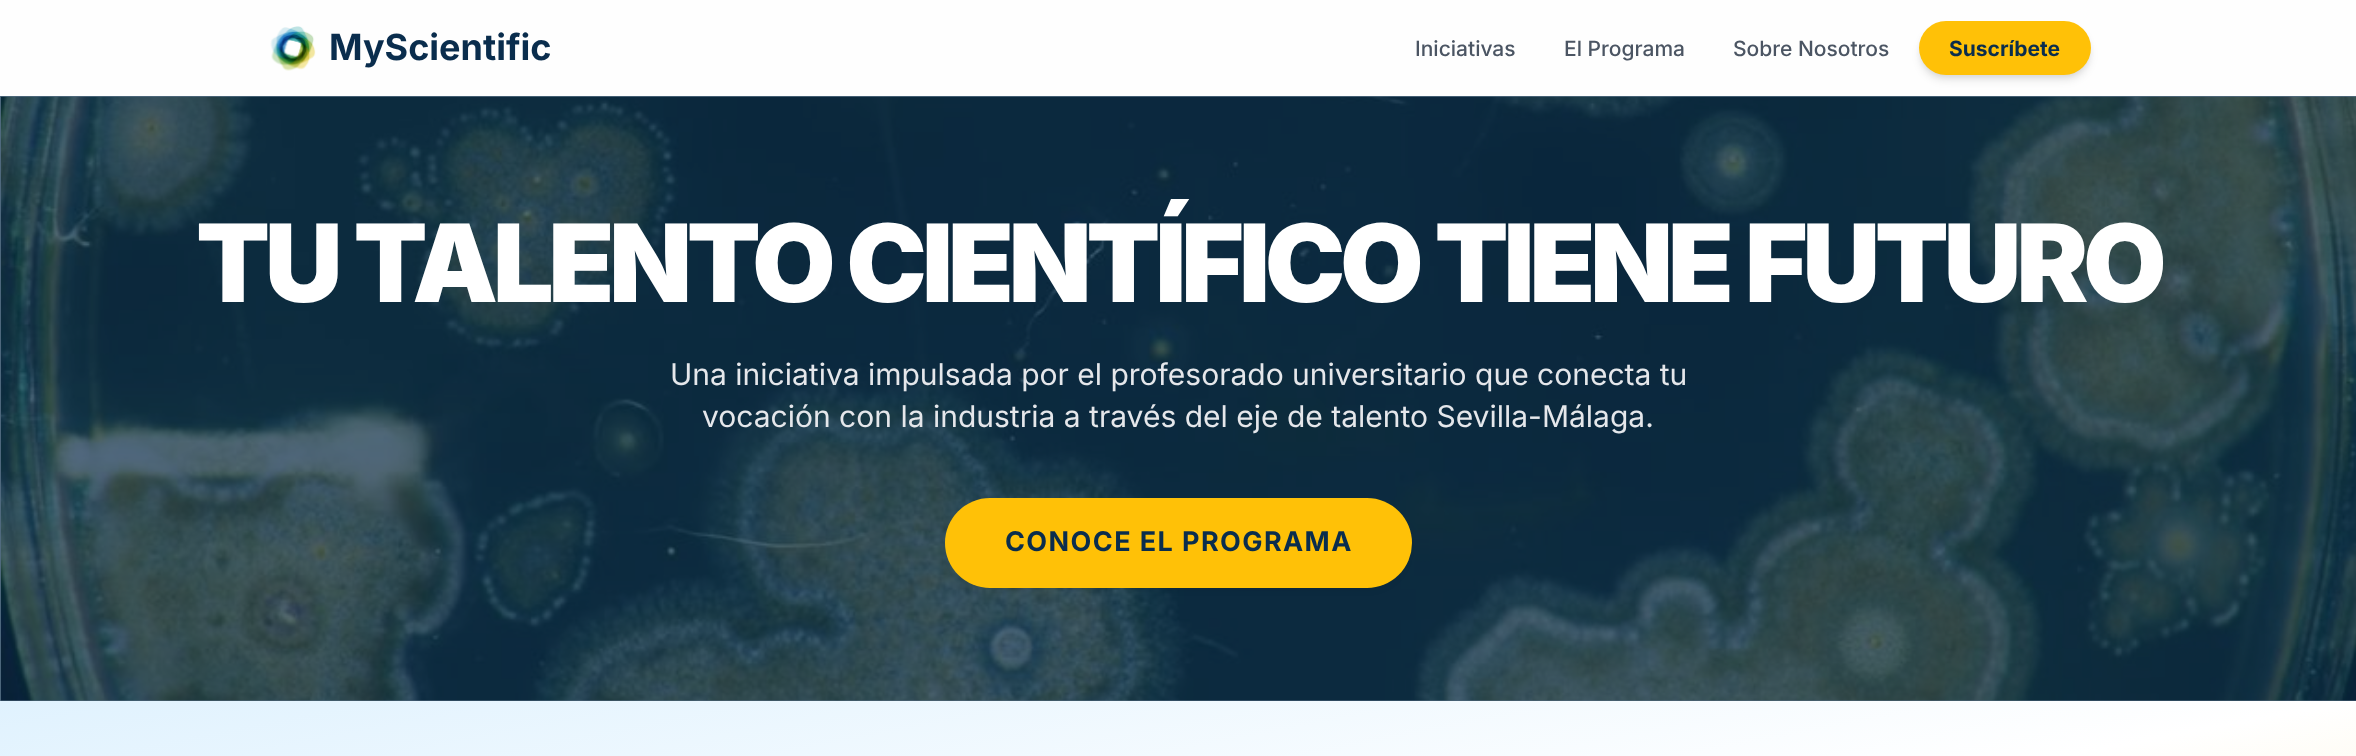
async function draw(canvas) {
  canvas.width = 2356
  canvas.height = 756
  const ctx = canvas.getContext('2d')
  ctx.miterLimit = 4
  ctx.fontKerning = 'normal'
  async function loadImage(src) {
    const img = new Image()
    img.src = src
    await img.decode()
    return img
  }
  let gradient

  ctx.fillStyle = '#526b81'
  ctx.fillRect(0, 0, 2356, 756)
  ctx.fillStyle = '#fefefe'
  ctx.fillRect(0, 0, 2356, 96)
  ctx.drawImage(await loadImage('image0.png'), 270, 26, 46, 45)
  ctx.font = 'bold 36px Inter'
  ctx.fillStyle = '#0a2d4d'
  ctx.fillText('MyScientific', 329, 60)
  ctx.font = '500 21px Inter'
  ctx.fillStyle = '#4b5563'
  ctx.fillText('Iniciativas', 1415, 56)
  ctx.fillText('El Programa', 1564, 56)
  ctx.fillText('Sobre Nosotros', 1733, 56)
  ctx.fillStyle = '#0000001a'
  ctx.filter = 'blur(3px)'
  ctx.beginPath()
  ctx.roundRect(1922, 27, 166, 48, 24)
  ctx.fill()
  ctx.filter = 'none'
  ctx.filter = 'blur(4.5px)'
  ctx.beginPath()
  ctx.roundRect(1920, 29, 170, 51, 25.5)
  ctx.fill()
  ctx.filter = 'none'
  ctx.fillStyle = '#ffc107'
  ctx.beginPath()
  ctx.roundRect(1919, 21, 172, 54, 27)
  ctx.fill()
  ctx.font = 'bold 21px Inter'
  ctx.fillStyle = '#0a2d4d'
  ctx.fillText('Suscríbete', 1949, 56)
  ctx.drawImage(await loadImage('image1.png'), 0, 96, 2356, 605)
  ctx.letterSpacing = '-5.4px'
  ctx.font = '900 108px Inter'
  ctx.fillStyle = '#fff'
  ctx.fillText('TU TALENTO CIENTÍFICO TIENE FUTURO', 196, 302)
  ctx.letterSpacing = '0px'
  ctx.font = '30px Inter'
  ctx.fillStyle = '#e5e7eb'
  ctx.fillText('Una iniciativa impulsada por el profesorado universitario que conecta tu', 670, 385)
  ctx.fillText('vocación con la industria a través del eje de talento Sevilla-Málaga.', 702, 427)
  ctx.fillStyle = '#0000001a'
  ctx.filter = 'blur(4.5px)'
  ctx.beginPath()
  ctx.roundRect(951, 510, 455, 78, 39)
  ctx.fill()
  ctx.filter = 'none'
  ctx.fillStyle = '#ffc107'
  ctx.beginPath()
  ctx.roundRect(945, 498, 467, 90, 45)
  ctx.fill()
  ctx.letterSpacing = '1.4px'
  ctx.font = 'bold 27px Inter'
  ctx.fillStyle = '#0a2d4d'
  ctx.fillText('CONOCE EL PROGRAMA', 1005, 551)
  gradient = ctx.createLinearGradient(1095, 491, 1261, 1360)
  gradient.addColorStop(0, '#e0f2fe')
  gradient.addColorStop(0.5, '#fff')
  gradient.addColorStop(1, '#fae9b2')
  ctx.fillStyle = gradient
  ctx.fillRect(0, 701, 2356, 55)
}

draw(document.querySelector('canvas'))
